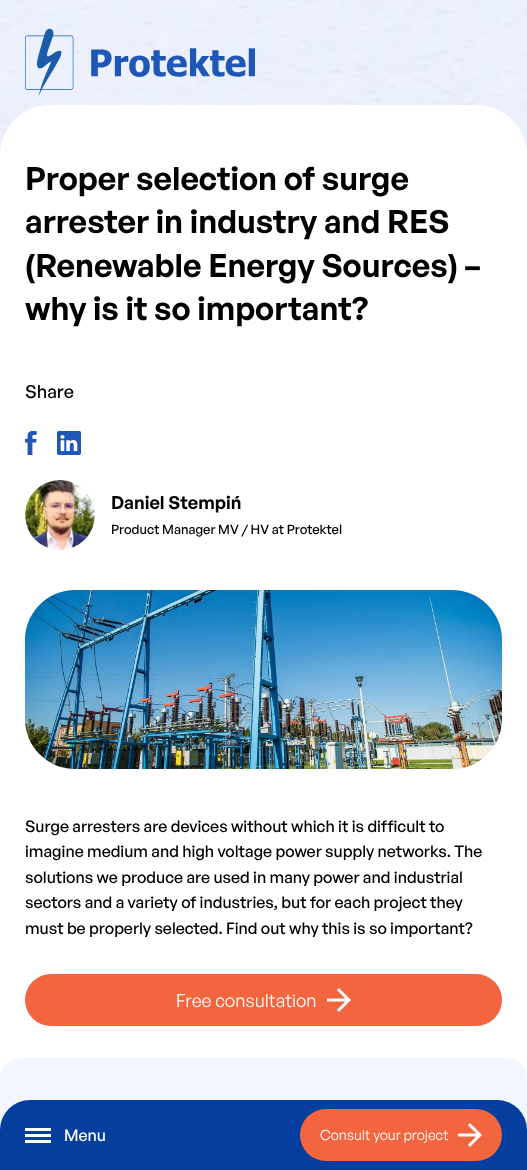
async function draw(canvas) {
  canvas.width = 527
  canvas.height = 1170
  const ctx = canvas.getContext('2d')
  ctx.miterLimit = 4
  ctx.fontKerning = 'normal'
  async function loadImage(src) {
    const img = new Image()
    img.src = src
    await img.decode()
    return img
  }

  ctx.fillStyle = '#fff'
  ctx.fillRect(0, 0, 527, 1170)
  ctx.drawImage(await loadImage('image0.png'), 0, 0, 527, 155)
  ctx.drawImage(await loadImage('image1.png'), 25, 28, 230, 68)
  ctx.beginPath()
  ctx.roundRect(0, 105, 527, 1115, 50)
  ctx.fill()
  ctx.font = '600 32px General Sans'
  ctx.fillStyle = '#000'
  ctx.fillText('Proper selection of surge', 25, 190)
  ctx.fillText('arrester in industry and RES', 25, 233)
  ctx.fillText('(Renewable Energy Sources) –', 25, 277)
  ctx.fillText('why is it so important?', 25, 320)
  ctx.font = '500 18px General Sans'
  ctx.fillText('Share', 25, 398)
  ctx.drawImage(await loadImage('image2.png'), 25, 431, 12, 24)
  ctx.drawImage(await loadImage('image3.png'), 57, 431, 24, 24)
  ctx.drawImage(await loadImage('image4.png'), 25, 480, 70, 70)
  ctx.font = '600 18px General Sans'
  ctx.fillText('Daniel Stempiń', 111, 509)
  ctx.font = '500 13px General Sans'
  ctx.fillText('Product Manager MV / HV at Protektel', 111, 534)
  ctx.fillStyle = '#f2f7ff'
  ctx.beginPath()
  ctx.roundRect(25, 590, 477, 179, 50)
  ctx.fill()
  ctx.drawImage(await loadImage('image5.png'), 25, 590, 477, 179)
  ctx.font = '500 16px General Sans'
  ctx.fillStyle = '#000'
  ctx.fillText('Surge arresters are devices without which it is difficult to', 25, 832)
  ctx.fillText('imagine medium and high voltage power supply networks. The', 25, 857)
  ctx.fillText('solutions we produce are used in many power and industrial', 25, 883)
  ctx.fillText('sectors and a variety of industries, but for each project they', 25, 908)
  ctx.fillText('must be properly selected. Find out why this is so important?', 25, 934)
  ctx.fillStyle = '#f2653e'
  ctx.beginPath()
  ctx.roundRect(25, 974, 477, 52, 26)
  ctx.fill()
  ctx.font = '18px General Sans'
  ctx.fillStyle = '#fff'
  ctx.fillText('Free consultation', 176, 1007)
  ctx.drawImage(await loadImage('image6.png'), 327, 988, 24, 24)
  ctx.fillStyle = '#f2f7ff'
  ctx.beginPath()
  ctx.roundRect(0, 1058, 527, 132, 20)
  ctx.fill()
  ctx.fillStyle = '#053e9e'
  ctx.beginPath()
  ctx.roundRect(0, 1100, 527, 70, [30, 30, 0, 0])
  ctx.fill()
  ctx.fillStyle = '#fff'
  ctx.fillRect(25, 1128, 26, 3)
  ctx.fillRect(25, 1134, 26, 3)
  ctx.fillRect(25, 1140, 26, 3)
  ctx.font = '500 16px General Sans'
  ctx.fillText('Menu', 64, 1141)
  ctx.fillStyle = '#f2653e'
  ctx.beginPath()
  ctx.roundRect(300, 1109, 202, 52, 26)
  ctx.fill()
  ctx.font = '14px General Sans'
  ctx.fillStyle = '#fff'
  ctx.fillText('Consult your project', 320, 1140)
  ctx.drawImage(await loadImage('image6.png'), 458, 1123, 24, 24)
}

draw(document.querySelector('canvas'))
